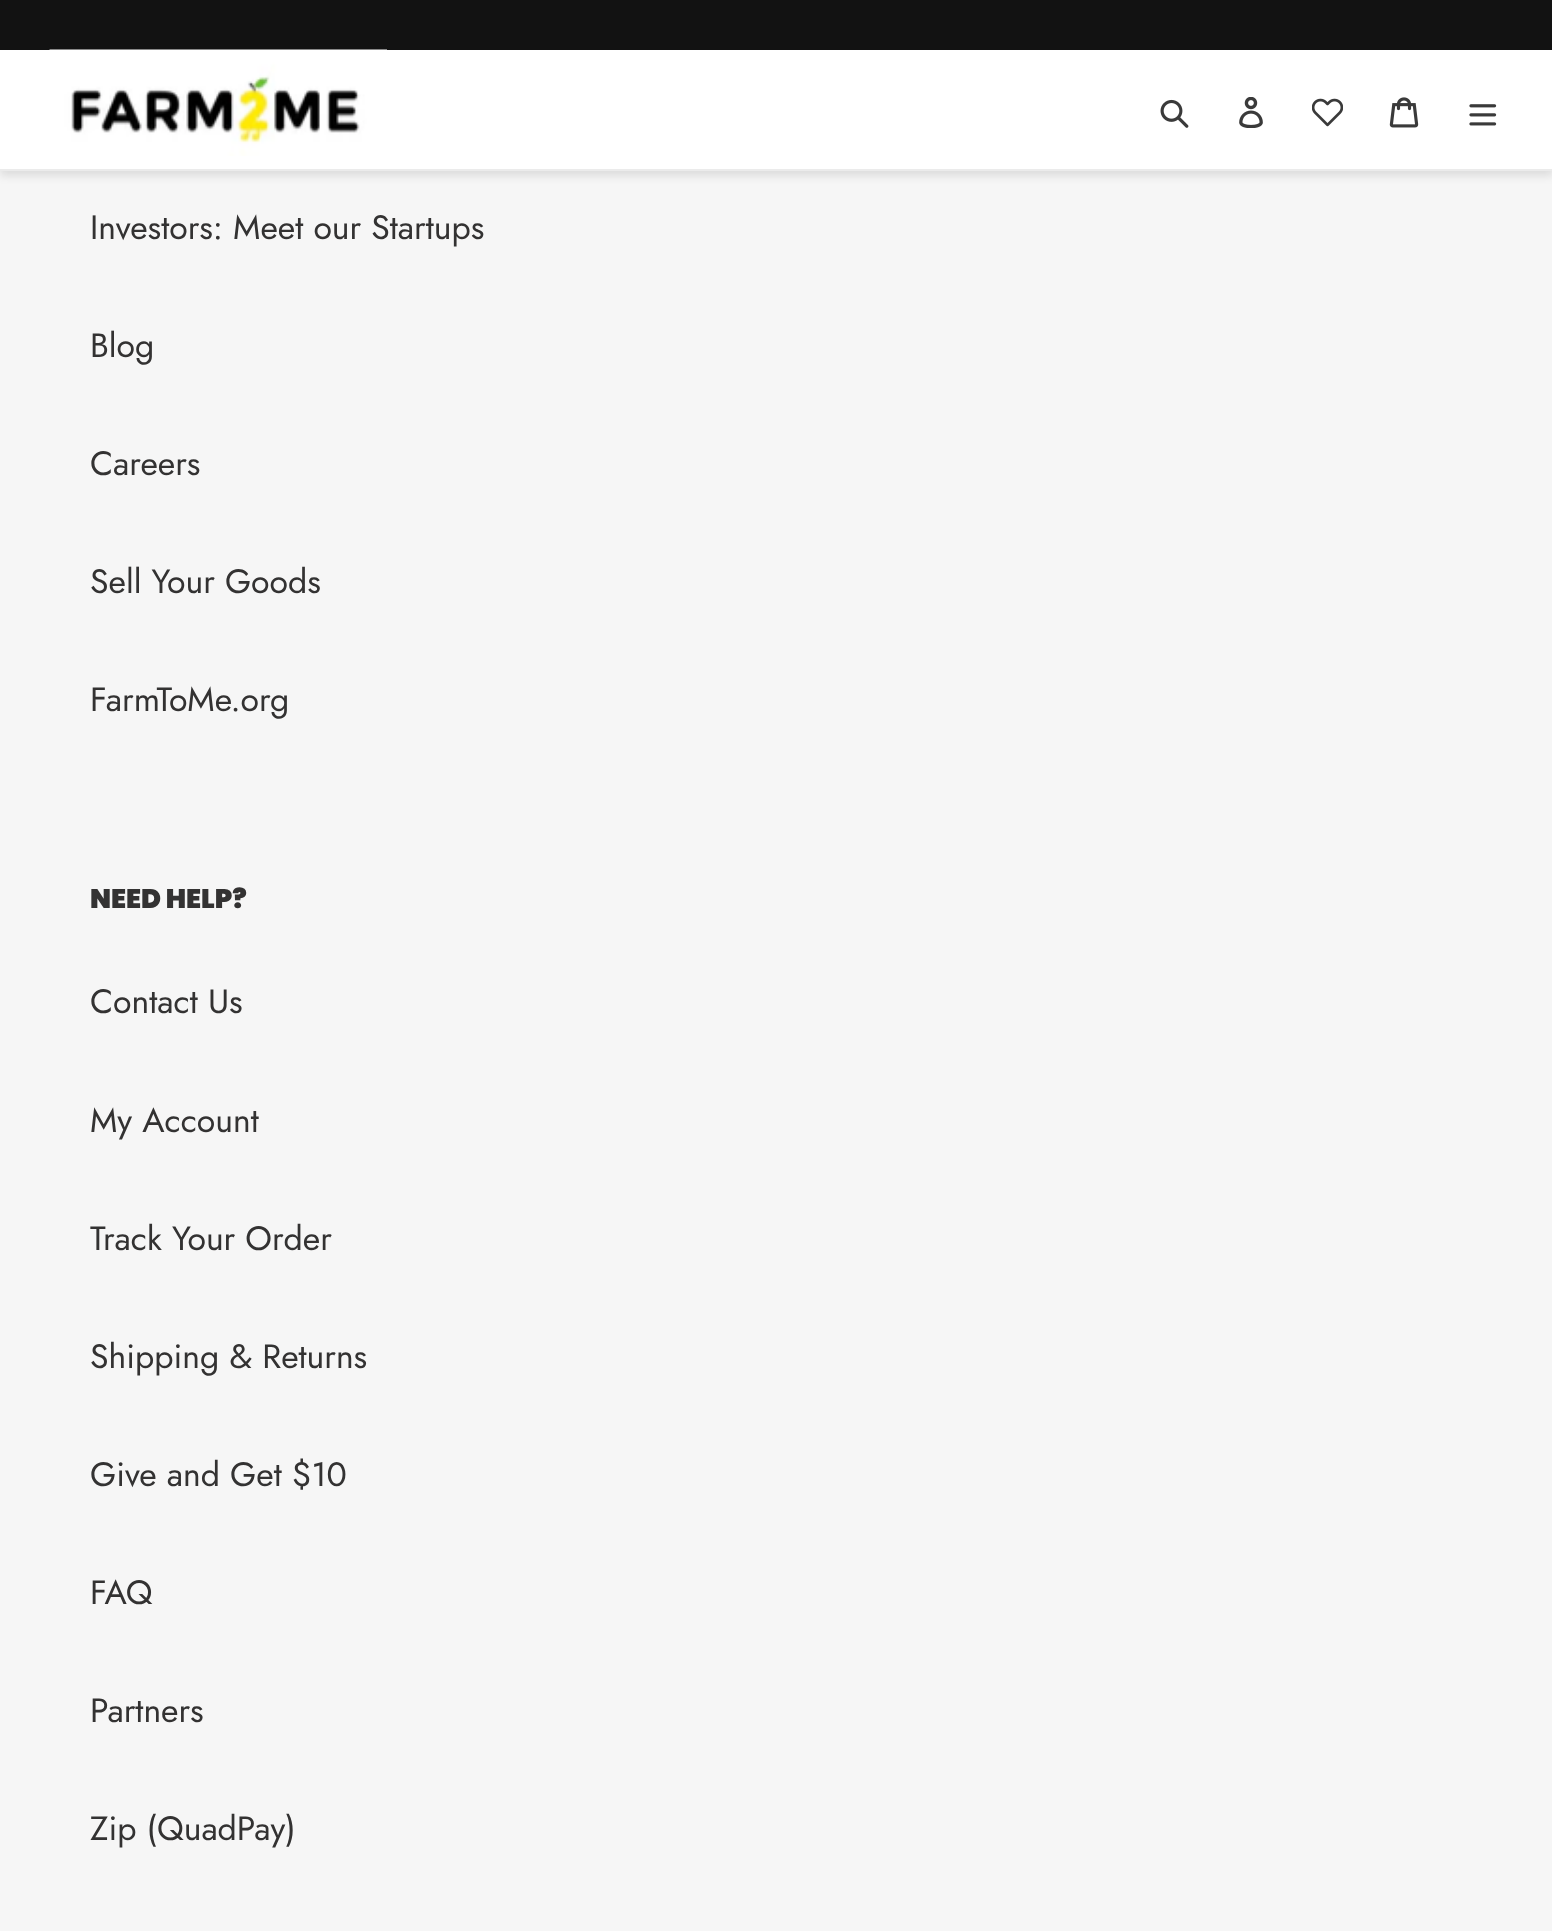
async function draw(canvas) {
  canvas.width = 1552
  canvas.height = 1931
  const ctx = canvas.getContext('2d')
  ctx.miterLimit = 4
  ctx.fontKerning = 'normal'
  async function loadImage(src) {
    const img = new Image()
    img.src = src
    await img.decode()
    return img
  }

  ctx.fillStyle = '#f6f6f6'
  ctx.fillRect(0, 0, 1552, 1931)
  ctx.fillStyle = '#0000001a'
  ctx.filter = 'blur(4.5px)'
  ctx.beginPath()
  ctx.rect(0, 5, 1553, 171)
  ctx.fill()
  ctx.filter = 'none'
  ctx.fillStyle = '#fff'
  ctx.fillRect(0, 50, 1552, 119)
  ctx.fillStyle = '#121212'
  ctx.fillRect(0, 0, 1552, 50)
  ctx.fillStyle = '#ebebeb'
  ctx.fillRect(0, 169, 1552, 2)
  ctx.drawImage(await loadImage('image0.png'), 49, 49, 338, 107)
  ctx.drawImage(await loadImage('image1.png'), 1160, 99, 29, 29)
  ctx.drawImage(await loadImage('image2.png'), 1239, 97, 24, 31)
  ctx.drawImage(await loadImage('image3.png'), 1312, 98, 31, 29)
  ctx.drawImage(await loadImage('image4.png'), 1389, 97, 30, 31)
  ctx.drawImage(await loadImage('image5.png'), 1469, 104, 28, 22)
  ctx.font = '33.75px Jost'
  ctx.fillStyle = '#333232'
  ctx.fillText('Investors: Meet our Startups', 90, 239)
  ctx.fillText('Blog', 90, 357)
  ctx.fillText('Careers', 90, 475)
  ctx.fillText('Sell Your Goods', 90, 593)
  ctx.fillText('FarmToMe.org', 90, 711)
  ctx.font = '900 27px Poppins'
  ctx.fillText('NEED HELP?', 90, 908)
  ctx.font = '33.75px Jost'
  ctx.fillText('Contact Us', 90, 1013)
  ctx.fillText('My Account', 90, 1132)
  ctx.fillText('Track Your Order', 90, 1250)
  ctx.fillText('Shipping & Returns', 90, 1368)
  ctx.fillText('Give and Get $10', 90, 1486)
  ctx.fillText('FAQ', 90, 1604)
  ctx.fillText('Partners', 90, 1722)
  ctx.fillText('Zip (QuadPay)', 90, 1840)
}

draw(document.querySelector('canvas'))
